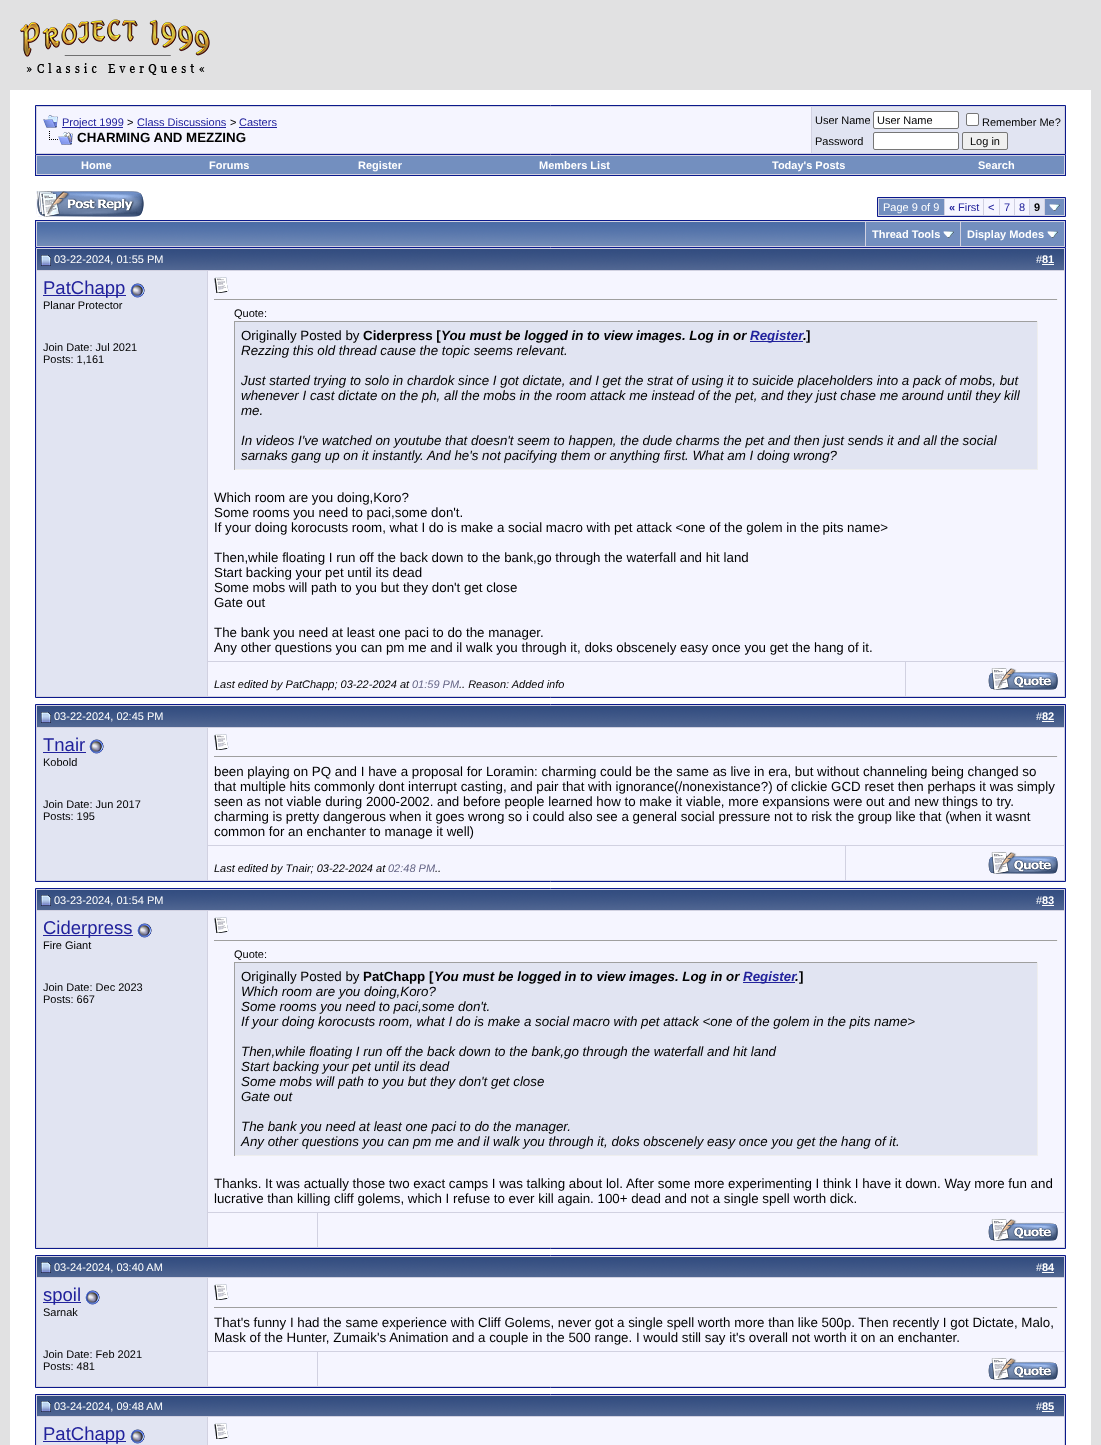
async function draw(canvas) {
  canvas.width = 1101
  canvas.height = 1445
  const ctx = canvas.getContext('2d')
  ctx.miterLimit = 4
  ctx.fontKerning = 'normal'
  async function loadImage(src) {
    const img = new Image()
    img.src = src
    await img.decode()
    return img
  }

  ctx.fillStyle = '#e1e1e2'
  ctx.fillRect(0, 0, 1101, 1445)
  ctx.drawImage(await loadImage('image0.png'), 20, 19, 190, 56)
  ctx.fillStyle = '#fff'
  ctx.fillRect(10, 90, 1081, 1355)
  ctx.fillStyle = '#d1d1e1'
  ctx.beginPath()
  ctx.rect(35.5, 105.5, 1030, 49)
  ctx.fill()
  ctx.strokeStyle = '#0b198c'
  ctx.stroke()
  ctx.fillStyle = '#f5f5ff'
  ctx.fillRect(37, 107, 774, 46)
  ctx.drawImage(await loadImage('image1.png'), 43, 115, 15, 13)
  ctx.fillStyle = '#22229c'
  ctx.fillRect(62, 127, 61, 1)
  ctx.font = '11px Liberation Sans'
  ctx.fillText('Project 1999', 62, 126)
  ctx.fillStyle = '#000'
  ctx.fillText('>', 127, 126)
  ctx.fillStyle = '#22229c'
  ctx.fillText('Class Discussions', 137, 126)
  ctx.fillRect(137, 127, 89, 1)
  ctx.fillStyle = '#000'
  ctx.fillText('>', 230, 126)
  ctx.fillStyle = '#22229c'
  ctx.fillText('Casters', 239, 126)
  ctx.fillRect(239, 127, 38, 1)
  ctx.drawImage(await loadImage('image2.png'), 49, 131, 24, 14)
  ctx.font = 'bold 13.33px Liberation Sans'
  ctx.fillStyle = '#000'
  ctx.fillText('CHARMING AND MEZZING', 77, 142)
  ctx.fillStyle = '#e1e4f2'
  ctx.fillRect(812, 107, 252, 46)
  ctx.font = '11px Liberation Sans'
  ctx.fillStyle = '#000'
  ctx.fillText('User Name', 815, 124)
  ctx.fillStyle = '#fff'
  ctx.beginPath()
  ctx.roundRect(873.5, 111.5, 85, 17, 1.5)
  ctx.fill()
  ctx.strokeStyle = '#767676'
  ctx.stroke()
  ctx.fillStyle = '#000'
  ctx.fillText('User Name', 877, 124)
  ctx.fillStyle = '#fff'
  ctx.beginPath()
  ctx.roundRect(966.5, 113.5, 12, 12, 1.5)
  ctx.fill()
  ctx.stroke()
  ctx.fillStyle = '#000'
  ctx.fillText('Remember Me?', 982, 126)
  ctx.fillText('Password', 815, 145)
  ctx.fillStyle = '#fff'
  ctx.beginPath()
  ctx.roundRect(873.5, 132.5, 85, 17, 1.5)
  ctx.fill()
  ctx.stroke()
  ctx.fillStyle = '#efefef'
  ctx.beginPath()
  ctx.roundRect(962.5, 132.5, 45, 17, 1.5)
  ctx.fill()
  ctx.stroke()
  ctx.fillStyle = '#000'
  ctx.fillText('Log in', 970, 145)
  ctx.fillStyle = '#d1d1e1'
  ctx.fillRect(36, 155, 1029, 20)
  ctx.fillStyle = '#0b198c'
  ctx.fillRect(1065, 155, 1, 21)
  ctx.fillRect(35, 175, 1031, 1)
  ctx.fillRect(35, 155, 1, 21)
  ctx.fillStyle = '#738fbf'
  ctx.fillRect(37, 156, 1027, 18)
  ctx.font = 'bold 11px Liberation Sans'
  ctx.fillStyle = '#fff'
  ctx.fillText('Home', 81, 169)
  ctx.fillText('Forums', 209, 169)
  ctx.fillText('Register', 358, 169)
  ctx.fillText('Members List', 539, 169)
  ctx.fillText('Today\'s Posts', 772, 169)
  ctx.fillText('Search', 978, 169)
  ctx.drawImage(await loadImage('image3.png'), 36, 191, 108, 26)
  ctx.fillStyle = '#d1d1e1'
  ctx.beginPath()
  ctx.rect(877.5, 197.5, 188, 19)
  ctx.fill()
  ctx.strokeStyle = '#0b198c'
  ctx.stroke()
  ctx.fillStyle = '#738fbf'
  ctx.fillRect(879, 199, 65, 16)
  ctx.font = '11px Liberation Sans'
  ctx.fillStyle = '#fff'
  ctx.fillText('Page 9 of 9', 883, 211)
  ctx.fillStyle = '#f5f5ff'
  ctx.fillRect(945, 199, 38, 16)
  ctx.font = 'bold 11px Liberation Sans'
  ctx.fillStyle = '#22229c'
  ctx.fillText('«', 949, 211)
  ctx.font = '11px Liberation Sans'
  ctx.fillText('First', 958, 211)
  ctx.fillStyle = '#f5f5ff'
  ctx.fillRect(984, 199, 15, 16)
  ctx.fillStyle = '#22229c'
  ctx.fillText('<', 988, 211)
  ctx.fillStyle = '#f5f5ff'
  ctx.fillRect(1000, 199, 14, 16)
  ctx.fillStyle = '#22229c'
  ctx.fillText('7', 1004, 211)
  ctx.fillStyle = '#f5f5ff'
  ctx.fillRect(1015, 199, 14, 16)
  ctx.fillStyle = '#22229c'
  ctx.fillText('8', 1019, 211)
  ctx.fillStyle = '#e1e4f2'
  ctx.fillRect(1030, 199, 14, 16)
  ctx.font = 'bold 11px Liberation Sans'
  ctx.fillStyle = '#000'
  ctx.fillText('9', 1034, 211)
  ctx.fillStyle = '#738fbf'
  ctx.fillRect(1045, 199, 19, 16)
  ctx.drawImage(await loadImage('image4.png'), 1049, 204, 11, 7)
  ctx.fillStyle = '#d1d1e1'
  ctx.fillRect(36, 221, 1029, 26)
  ctx.fillStyle = '#0b198c'
  ctx.fillRect(35, 220, 1031, 1)
  ctx.fillRect(1065, 220, 1, 27)
  ctx.fillRect(35, 220, 1, 27)
  ctx.drawImage(await loadImage('image5.png'), 37, 222, 828, 24)
  ctx.fillStyle = '#738fbf'
  ctx.fillRect(866, 222, 94, 24)
  ctx.fillStyle = '#fff'
  ctx.fillText('Thread Tools', 872, 238)
  ctx.drawImage(await loadImage('image4.png'), 943, 231, 11, 7)
  ctx.fillStyle = '#738fbf'
  ctx.fillRect(961, 222, 103, 24)
  ctx.fillStyle = '#fff'
  ctx.fillText('Display Modes', 967, 238)
  ctx.drawImage(await loadImage('image4.png'), 1047, 231, 11, 7)
  ctx.fillStyle = '#d1d1e1'
  ctx.beginPath()
  ctx.rect(35.5, 247.5, 1030, 450)
  ctx.fill()
  ctx.stroke()
  ctx.drawImage(await loadImage('image6.png'), 37, 249, 1027, 21)
  ctx.drawImage(await loadImage('image7.png'), 41, 255, 10, 11)
  ctx.font = '11px Liberation Sans'
  ctx.fillStyle = '#fff'
  ctx.fillText('03-22-2024, 01:55 PM', 54, 263)
  ctx.fillText('#', 1036, 263)
  ctx.font = 'bold 11px Liberation Sans'
  ctx.fillText('81', 1042, 263)
  ctx.fillRect(1042, 264, 12, 1)
  ctx.fillStyle = '#e1e4f2'
  ctx.fillRect(37, 271, 170, 425)
  ctx.fillStyle = '#22229c'
  ctx.fillRect(43, 295, 83, 1)
  ctx.font = '18.5px Liberation Sans'
  ctx.fillText('PatChapp', 43, 294)
  ctx.drawImage(await loadImage('image8.png'), 130, 283, 15, 15)
  ctx.font = '11px Liberation Sans'
  ctx.fillStyle = '#000'
  ctx.fillText('Planar Protector', 43, 309)
  ctx.fillText('Join Date: Jul 2021', 43, 351)
  ctx.fillText('Posts: 1,161', 43, 363)
  ctx.fillStyle = '#f5f5ff'
  ctx.fillRect(208, 271, 856, 390)
  ctx.drawImage(await loadImage('image9.png'), 214, 277, 15, 16)
  ctx.fillStyle = '#9f9f9f'
  ctx.fillRect(214, 299, 844, 1)
  ctx.fillStyle = '#eee'
  ctx.fillRect(1057, 299, 1, 1)
  ctx.fillStyle = '#000'
  ctx.fillText('Quote:', 234, 317)
  ctx.fillStyle = '#e1e4f2'
  ctx.fillRect(235, 322, 802, 147)
  ctx.fillStyle = '#9f9f9f'
  ctx.fillRect(234, 321, 804, 1)
  ctx.fillStyle = '#eee'
  ctx.fillRect(1037, 321, 1, 149)
  ctx.fillRect(234, 469, 804, 1)
  ctx.fillStyle = '#9f9f9f'
  ctx.fillRect(234, 321, 1, 149)
  ctx.font = '13.33px Liberation Sans'
  ctx.fillStyle = '#000'
  ctx.fillText('Originally Posted by', 241, 340)
  ctx.font = 'bold 13.33px Liberation Sans'
  ctx.fillText('Ciderpress [', 363, 340)
  ctx.font = 'italic bold 13.33px Liberation Sans'
  ctx.fillText('You must be logged in to view images. Log in or', 441, 340)
  ctx.fillStyle = '#22229c'
  ctx.fillRect(750, 341, 53, 1)
  ctx.fillText('Register', 750, 340)
  ctx.fillStyle = '#000'
  ctx.fillText('.', 803, 340)
  ctx.font = 'bold 13.33px Liberation Sans'
  ctx.fillText(']', 806, 340)
  ctx.font = 'italic 13.33px Liberation Sans'
  ctx.fillText('Rezzing this old thread cause the topic seems relevant.', 241, 355)
  ctx.fillText('Just started trying to solo in chardok since I got dictate, and I get the strat of using it to suicide placeholders into a pack of mobs, but', 241, 385)
  ctx.fillText('whenever I cast dictate on the ph, all the mobs in the room attack me instead of the pet, and they just chase me around until they kill', 241, 400)
  ctx.fillText('me.', 241, 415)
  ctx.fillText('In videos I\'ve watched on youtube that doesn\'t seem to happen, the dude charms the pet and then just sends it and all the social', 241, 445)
  ctx.fillText('sarnaks gang up on it instantly. And he\'s not pacifying them or anything first. What am I doing wrong?', 241, 460)
  ctx.font = '13.33px Liberation Sans'
  ctx.fillText('Which room are you doing,Koro?', 214, 502)
  ctx.fillText('Some rooms you need to paci,some don\'t.', 214, 517)
  ctx.fillText('If your doing korocusts room, what I do is make a social macro with pet attack <one of the golem in the pits name>', 214, 532)
  ctx.fillText('Then,while floating I run off the back down to the bank,go through the waterfall and hit land', 214, 562)
  ctx.fillText('Start backing your pet until its dead', 214, 577)
  ctx.fillText('Some mobs will path to you but they don\'t get close', 214, 592)
  ctx.fillText('Gate out', 214, 607)
  ctx.fillText('The bank you need at least one paci to do the manager.', 214, 637)
  ctx.fillText('Any other questions you can pm me and il walk you through it, doks obscenely easy once you get the hang of it.', 214, 652)
  ctx.fillStyle = '#f5f5ff'
  ctx.fillRect(208, 662, 697, 34)
  ctx.font = 'italic 11px Liberation Sans'
  ctx.fillStyle = '#000'
  ctx.fillText('Last edited by PatChapp; 03-22-2024 at', 214, 688)
  ctx.fillStyle = '#666686'
  ctx.fillText('01:59 PM', 412, 688)
  ctx.fillStyle = '#000'
  ctx.fillText('.. Reason: Added info', 459, 688)
  ctx.fillStyle = '#f5f5ff'
  ctx.fillRect(906, 662, 158, 34)
  ctx.drawImage(await loadImage('image10.png'), 988, 668, 70, 22)
  ctx.fillStyle = '#d1d1e1'
  ctx.beginPath()
  ctx.rect(35.5, 704.5, 1030, 177)
  ctx.fill()
  ctx.stroke()
  ctx.drawImage(await loadImage('image6.png'), 37, 706, 1027, 21)
  ctx.drawImage(await loadImage('image7.png'), 41, 712, 10, 11)
  ctx.font = '11px Liberation Sans'
  ctx.fillStyle = '#fff'
  ctx.fillText('03-22-2024, 02:45 PM', 54, 720)
  ctx.fillText('#', 1036, 720)
  ctx.font = 'bold 11px Liberation Sans'
  ctx.fillText('82', 1042, 720)
  ctx.fillRect(1042, 721, 12, 1)
  ctx.fillStyle = '#e1e4f2'
  ctx.fillRect(37, 728, 170, 152)
  ctx.font = '18.5px Liberation Sans'
  ctx.fillStyle = '#22229c'
  ctx.fillText('Tnair', 43, 751)
  ctx.fillRect(43, 752, 43, 1)
  ctx.drawImage(await loadImage('image8.png'), 89, 739, 15, 15)
  ctx.font = '11px Liberation Sans'
  ctx.fillStyle = '#000'
  ctx.fillText('Kobold', 43, 766)
  ctx.fillText('Join Date: Jun 2017', 43, 808)
  ctx.fillText('Posts: 195', 43, 820)
  ctx.fillStyle = '#f5f5ff'
  ctx.fillRect(208, 728, 856, 117)
  ctx.drawImage(await loadImage('image9.png'), 214, 734, 15, 16)
  ctx.fillStyle = '#9f9f9f'
  ctx.fillRect(214, 756, 844, 1)
  ctx.fillStyle = '#eee'
  ctx.fillRect(1057, 756, 1, 1)
  ctx.font = '13.33px Liberation Sans'
  ctx.fillStyle = '#000'
  ctx.fillText('been playing on PQ and I have a proposal for Loramin: charming could be the same as live in era, but without channeling being changed so', 214, 776)
  ctx.fillText('that multiple hits commonly dont interrupt casting, and pair that with ignorance(/nonexistance?) of clickie GCD reset then perhaps it was simply', 214, 791)
  ctx.fillText('seen as not viable during 2000-2002. and before people learned how to make it viable, more expansions were out and new things to try.', 214, 806)
  ctx.fillText('charming is pretty dangerous when it goes wrong so i could also see a general social pressure not to risk the group like that (when it wasnt', 214, 821)
  ctx.fillText('common for an enchanter to manage it well)', 214, 836)
  ctx.fillStyle = '#f5f5ff'
  ctx.fillRect(208, 846, 637, 34)
  ctx.font = 'italic 11px Liberation Sans'
  ctx.fillStyle = '#000'
  ctx.fillText('Last edited by Tnair; 03-22-2024 at', 214, 872)
  ctx.fillStyle = '#666686'
  ctx.fillText('02:48 PM', 388, 872)
  ctx.fillStyle = '#000'
  ctx.fillText('..', 435, 872)
  ctx.fillStyle = '#f5f5ff'
  ctx.fillRect(846, 846, 218, 34)
  ctx.drawImage(await loadImage('image10.png'), 988, 852, 70, 22)
  ctx.fillStyle = '#d1d1e1'
  ctx.beginPath()
  ctx.rect(35.5, 888.5, 1030, 360)
  ctx.fill()
  ctx.stroke()
  ctx.drawImage(await loadImage('image11.png'), 37, 890, 1027, 20)
  ctx.drawImage(await loadImage('image12.png'), 41, 895, 10, 11)
  ctx.font = '11px Liberation Sans'
  ctx.fillStyle = '#fff'
  ctx.fillText('03-23-2024, 01:54 PM', 54, 904)
  ctx.fillText('#', 1036, 904)
  ctx.font = 'bold 11px Liberation Sans'
  ctx.fillText('83', 1042, 904)
  ctx.fillRect(1042, 905, 12, 1)
  ctx.fillStyle = '#e1e4f2'
  ctx.fillRect(37, 911, 170, 336)
  ctx.fillStyle = '#22229c'
  ctx.fillRect(43, 935, 90, 1)
  ctx.font = '18.5px Liberation Sans'
  ctx.fillText('Ciderpress', 43, 934)
  ctx.drawImage(await loadImage('image8.png'), 137, 923, 15, 15)
  ctx.font = '11px Liberation Sans'
  ctx.fillStyle = '#000'
  ctx.fillText('Fire Giant', 43, 949)
  ctx.fillText('Join Date: Dec 2023', 43, 991)
  ctx.fillText('Posts: 667', 43, 1003)
  ctx.fillStyle = '#f5f5ff'
  ctx.fillRect(208, 911, 856, 301)
  ctx.drawImage(await loadImage('image9.png'), 214, 917, 15, 16)
  ctx.fillStyle = '#9f9f9f'
  ctx.fillRect(214, 940, 844, 1)
  ctx.fillStyle = '#eee'
  ctx.fillRect(1057, 940, 1, 1)
  ctx.fillStyle = '#000'
  ctx.fillText('Quote:', 234, 958)
  ctx.fillStyle = '#e1e4f2'
  ctx.fillRect(235, 963, 802, 192)
  ctx.fillStyle = '#9f9f9f'
  ctx.fillRect(234, 962, 804, 1)
  ctx.fillStyle = '#eee'
  ctx.fillRect(1037, 962, 1, 194)
  ctx.fillRect(234, 1155, 804, 1)
  ctx.fillStyle = '#9f9f9f'
  ctx.fillRect(234, 962, 1, 194)
  ctx.font = '13.33px Liberation Sans'
  ctx.fillStyle = '#000'
  ctx.fillText('Originally Posted by', 241, 981)
  ctx.font = 'bold 13.33px Liberation Sans'
  ctx.fillText('PatChapp [', 363, 981)
  ctx.font = 'italic bold 13.33px Liberation Sans'
  ctx.fillText('You must be logged in to view images. Log in or', 434, 981)
  ctx.fillStyle = '#22229c'
  ctx.fillRect(743, 982, 52, 1)
  ctx.fillText('Register', 743, 981)
  ctx.font = 'bold 13.33px Liberation Sans'
  ctx.fillStyle = '#000'
  ctx.fillText(']', 799, 981)
  ctx.font = 'italic bold 13.33px Liberation Sans'
  ctx.fillText('.', 795, 981)
  ctx.font = 'italic 13.33px Liberation Sans'
  ctx.fillText('Which room are you doing,Koro?', 241, 996)
  ctx.fillText('Some rooms you need to paci,some don\'t.', 241, 1011)
  ctx.fillText('If your doing korocusts room, what I do is make a social macro with pet attack <one of the golem in the pits name>', 241, 1026)
  ctx.fillText('Then,while floating I run off the back down to the bank,go through the waterfall and hit land', 241, 1056)
  ctx.fillText('Start backing your pet until its dead', 241, 1071)
  ctx.fillText('Some mobs will path to you but they don\'t get close', 241, 1086)
  ctx.fillText('Gate out', 241, 1101)
  ctx.fillText('The bank you need at least one paci to do the manager.', 241, 1131)
  ctx.fillText('Any other questions you can pm me and il walk you through it, doks obscenely easy once you get the hang of it.', 241, 1146)
  ctx.font = '13.33px Liberation Sans'
  ctx.fillText('Thanks. It was actually those two exact camps I was talking about lol. After some more experimenting I think I have it down. Way more fun and', 214, 1188)
  ctx.fillText('lucrative than killing cliff golems, which I refuse to ever kill again. 100+ dead and not a single spell worth dick.', 214, 1203)
  ctx.fillStyle = '#f5f5ff'
  ctx.fillRect(208, 1213, 109, 34)
  ctx.fillRect(318, 1213, 746, 34)
  ctx.drawImage(await loadImage('image10.png'), 988, 1219, 70, 22)
  ctx.fillStyle = '#d1d1e1'
  ctx.beginPath()
  ctx.rect(35.5, 1255.5, 1030, 132)
  ctx.fill()
  ctx.stroke()
  ctx.drawImage(await loadImage('image11.png'), 37, 1257, 1027, 20)
  ctx.drawImage(await loadImage('image12.png'), 41, 1262, 10, 11)
  ctx.font = '11px Liberation Sans'
  ctx.fillStyle = '#fff'
  ctx.fillText('03-24-2024, 03:40 AM', 54, 1271)
  ctx.fillText('#', 1036, 1271)
  ctx.font = 'bold 11px Liberation Sans'
  ctx.fillText('84', 1042, 1271)
  ctx.fillRect(1042, 1272, 12, 1)
  ctx.fillStyle = '#e1e4f2'
  ctx.fillRect(37, 1278, 170, 108)
  ctx.fillStyle = '#22229c'
  ctx.fillRect(43, 1302, 38, 1)
  ctx.font = '18.5px Liberation Sans'
  ctx.fillText('spoil', 43, 1301)
  ctx.drawImage(await loadImage('image8.png'), 85, 1290, 15, 15)
  ctx.font = '11px Liberation Sans'
  ctx.fillStyle = '#000'
  ctx.fillText('Sarnak', 43, 1316)
  ctx.fillText('Join Date: Feb 2021', 43, 1358)
  ctx.fillText('Posts: 481', 43, 1370)
  ctx.fillStyle = '#f5f5ff'
  ctx.fillRect(208, 1278, 856, 73)
  ctx.drawImage(await loadImage('image9.png'), 214, 1284, 15, 16)
  ctx.fillStyle = '#9f9f9f'
  ctx.fillRect(214, 1307, 844, 1)
  ctx.fillStyle = '#eee'
  ctx.fillRect(1057, 1307, 1, 1)
  ctx.font = '13.33px Liberation Sans'
  ctx.fillStyle = '#000'
  ctx.fillText('That\'s funny I had the same experience with Cliff Golems, never got a single spell worth more than like 500p. Then recently I got Dictate, Malo,', 214, 1327)
  ctx.fillText('Mask of the Hunter, Zumaik\'s Animation and a couple in the 500 range. I would still say it\'s overall not worth it on an enchanter.', 214, 1342)
  ctx.fillStyle = '#f5f5ff'
  ctx.fillRect(208, 1352, 109, 34)
  ctx.fillRect(318, 1352, 746, 34)
  ctx.drawImage(await loadImage('image10.png'), 988, 1358, 70, 22)
  ctx.fillStyle = '#d1d1e1'
  ctx.beginPath()
  ctx.rect(35.5, 1394.5, 1030, 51)
  ctx.fill()
  ctx.stroke()
  ctx.drawImage(await loadImage('image11.png'), 37, 1396, 1027, 20)
  ctx.drawImage(await loadImage('image12.png'), 41, 1401, 10, 11)
  ctx.font = '11px Liberation Sans'
  ctx.fillStyle = '#fff'
  ctx.fillText('03-24-2024, 09:48 AM', 54, 1410)
  ctx.fillText('#', 1036, 1410)
  ctx.font = 'bold 11px Liberation Sans'
  ctx.fillText('85', 1042, 1410)
  ctx.fillRect(1042, 1411, 12, 1)
  ctx.fillStyle = '#e1e4f2'
  ctx.fillRect(37, 1417, 170, 28)
  ctx.fillStyle = '#22229c'
  ctx.fillRect(43, 1441, 83, 1)
  ctx.font = '18.5px Liberation Sans'
  ctx.fillText('PatChapp', 43, 1440)
  ctx.drawImage(await loadImage('image8.png'), 130, 1429, 15, 15)
  ctx.fillStyle = '#f5f5ff'
  ctx.fillRect(208, 1417, 856, 28)
  ctx.drawImage(await loadImage('image9.png'), 214, 1423, 15, 16)
}

draw(document.querySelector('canvas'))
